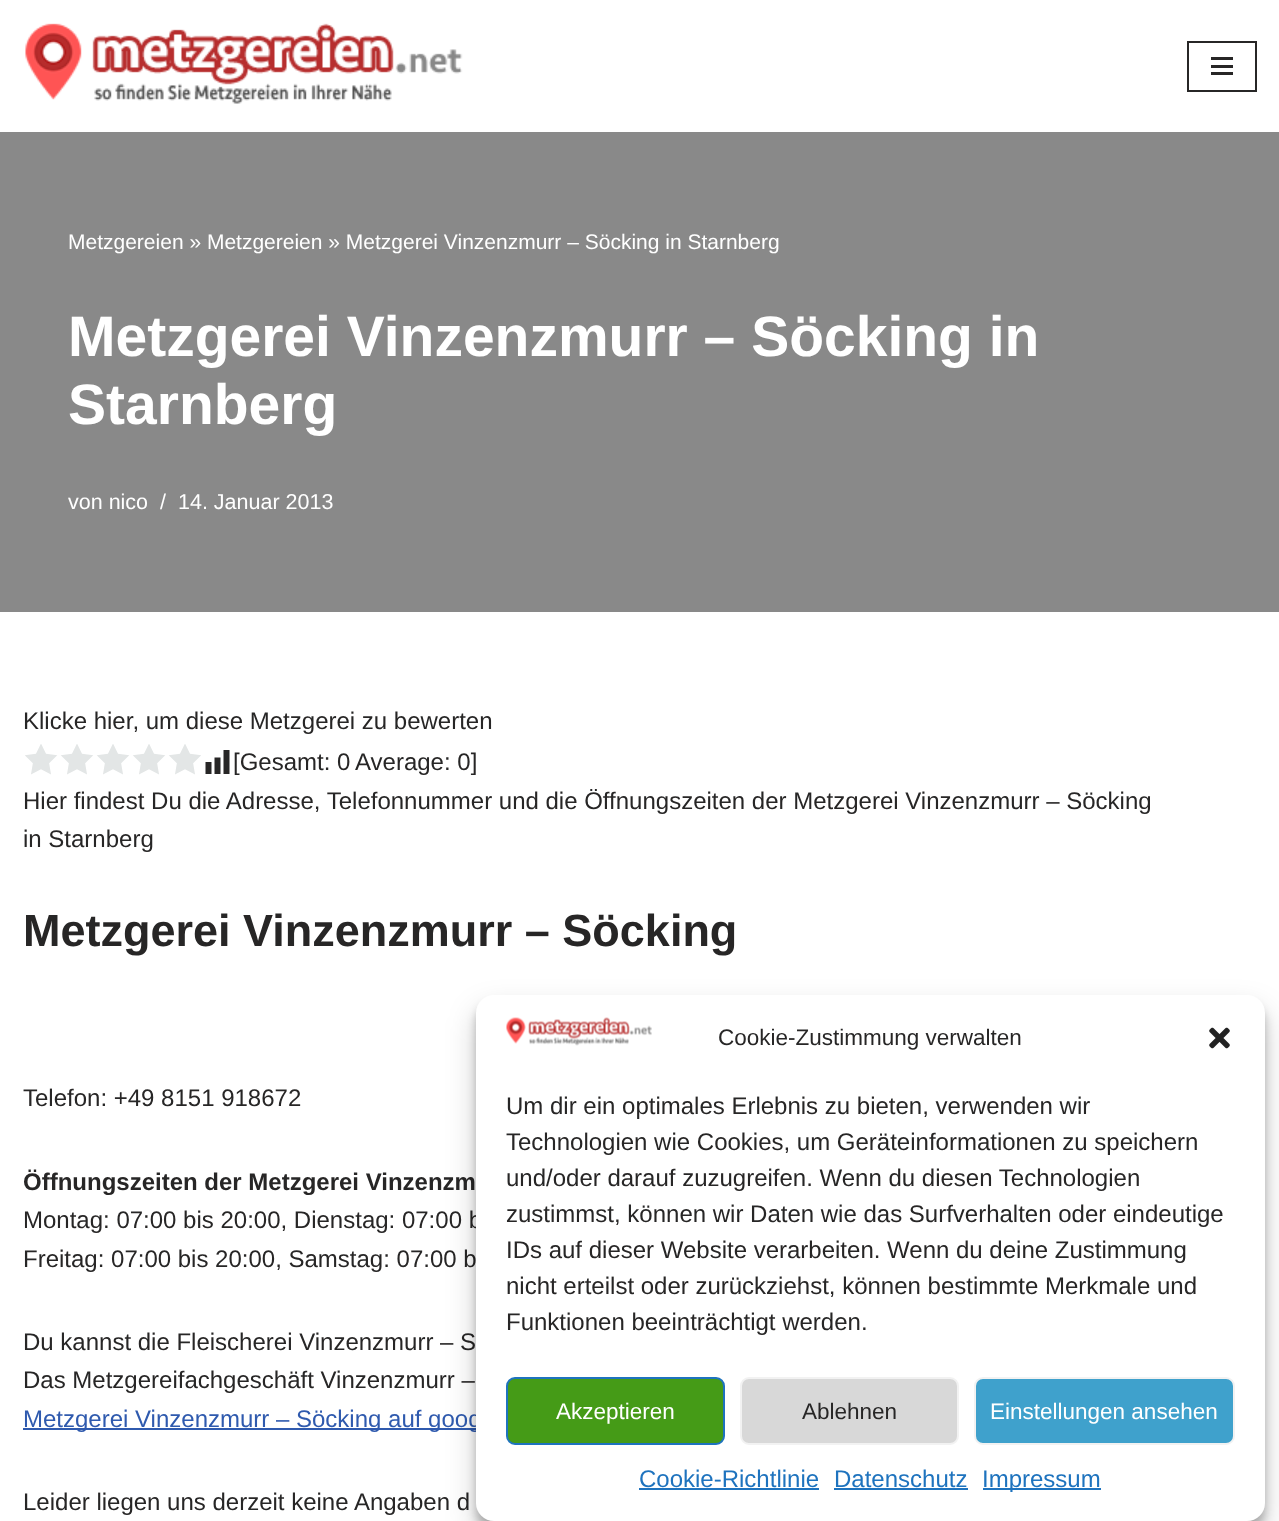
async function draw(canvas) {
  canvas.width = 1279
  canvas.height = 1521
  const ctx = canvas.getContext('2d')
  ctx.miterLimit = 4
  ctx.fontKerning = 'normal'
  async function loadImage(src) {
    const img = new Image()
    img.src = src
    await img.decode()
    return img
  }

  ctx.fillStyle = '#fff'
  ctx.fillRect(0, 0, 1279, 1521)
  ctx.fillStyle = '#898989'
  ctx.fillRect(0, 132, 1279, 480)
  ctx.drawImage(await loadImage('image0.png'), 25, 23, 438, 81)
  ctx.strokeStyle = '#272626'
  ctx.lineWidth = 2
  ctx.strokeRect(1188, 42, 68, 49)
  ctx.fillStyle = '#272626'
  ctx.fillRect(1211, 57, 22, 3)
  ctx.fillRect(1211, 65, 22, 3)
  ctx.fillRect(1211, 72, 22, 3)
  ctx.font = '21px Liberation Sans'
  ctx.fillStyle = '#fff'
  ctx.fillText('Metzgereien » Metzgereien » Metzgerei Vinzenzmurr – Söcking in Starnberg', 68, 249)
  ctx.font = 'bold 57px Liberation Sans'
  ctx.fillText('Metzgerei Vinzenzmurr – Söcking in', 68, 356)
  ctx.fillText('Starnberg', 68, 424)
  ctx.font = '21.5px Liberation Sans'
  ctx.fillText('von nico', 68, 509)
  ctx.fillText('/', 160, 509)
  ctx.fillText('14. Januar 2013', 178, 509)
  ctx.font = '24px Liberation Sans'
  ctx.fillStyle = '#272626'
  ctx.fillText('Klicke hier, um diese Metzgerei zu bewerten', 23, 729)
  ctx.drawImage(await loadImage('image1.png'), 25, 744, 176, 31)
  ctx.drawImage(await loadImage('image2.png'), 205, 750, 25, 24)
  ctx.fillText('[Gesamt: 0', 233, 770)
  ctx.fillText('Average: 0]', 355, 770)
  ctx.fillText('Hier findest Du die Adresse, Telefonnummer und die Öffnungszeiten der Metzgerei Vinzenzmurr – Söcking', 23, 809)
  ctx.fillText('in Starnberg', 23, 847)
  ctx.font = 'bold 45px Liberation Sans'
  ctx.fillText('Metzgerei Vinzenzmurr – Söcking', 23, 946)
  ctx.font = '24px Liberation Sans'
  ctx.fillText('Telefon: +49 8151 918672', 23, 1106)
  ctx.font = 'bold 24px Liberation Sans'
  ctx.fillText('Öffnungszeiten der Metzgerei Vinzenzm', 23, 1190)
  ctx.font = '24px Liberation Sans'
  ctx.fillText('Montag: 07:00 bis 20:00, Dienstag: 07:00 b', 23, 1228)
  ctx.fillText('Freitag: 07:00 bis 20:00, Samstag: 07:00 b', 23, 1267)
  ctx.fillText('Du kannst die Fleischerei Vinzenzmurr – S', 23, 1350)
  ctx.fillText('Das Metzgereifachgeschäft Vinzenzmurr –', 23, 1388)
  ctx.fillStyle = '#2f5aae'
  ctx.fillRect(23, 1428, 453, 2)
  ctx.fillText('Metzgerei Vinzenzmurr – Söcking auf goog', 23, 1427)
  ctx.fillStyle = '#272626'
  ctx.fillText('Leider liegen uns derzeit keine Angaben d', 23, 1510)
  ctx.fillStyle = '#0000003b'
  ctx.filter = 'blur(4.5px)'
  ctx.beginPath()
  ctx.roundRect(476, 1004, 789, 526, 18)
  ctx.fill()
  ctx.filter = 'none'
  ctx.fillStyle = '#00000030'
  ctx.filter = 'blur(15px)'
  ctx.beginPath()
  ctx.roundRect(476, 1010, 789, 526, 18)
  ctx.fill()
  ctx.filter = 'none'
  ctx.fillStyle = '#fff'
  ctx.beginPath()
  ctx.roundRect(476, 995, 789, 526, 18)
  ctx.fill()
  ctx.drawImage(await loadImage('image3.png'), 506, 1017, 146, 29)
  ctx.font = '22.5px Liberation Sans'
  ctx.fillStyle = '#272626'
  ctx.fillText('Cookie-Zustimmung verwalten', 718, 1045)
  ctx.drawImage(await loadImage('image4.png'), 1209, 1027, 21, 22)
  ctx.font = '24px Liberation Sans'
  ctx.fillText('Um dir ein optimales Erlebnis zu bieten, verwenden wir', 506, 1114)
  ctx.fillText('Technologien wie Cookies, um Geräteinformationen zu speichern', 506, 1150)
  ctx.fillText('und/oder darauf zuzugreifen. Wenn du diesen Technologien', 506, 1186)
  ctx.fillText('zustimmst, können wir Daten wie das Surfverhalten oder eindeutige', 506, 1222)
  ctx.fillText('IDs auf dieser Website verarbeiten. Wenn du deine Zustimmung', 506, 1258)
  ctx.fillText('nicht erteilst oder zurückziehst, können bestimmte Merkmale und', 506, 1294)
  ctx.fillText('Funktionen beeinträchtigt werden.', 506, 1330)
  ctx.fillStyle = '#459b17'
  ctx.beginPath()
  ctx.roundRect(507, 1378, 217, 66, 8)
  ctx.fill()
  ctx.strokeStyle = '#1e73be'
  ctx.stroke()
  ctx.font = '22.5px Liberation Sans'
  ctx.fillStyle = '#fff'
  ctx.fillText('Akzeptieren', 556, 1419)
  ctx.fillStyle = '#d8d8d8'
  ctx.beginPath()
  ctx.roundRect(741, 1378, 217, 66, 8)
  ctx.fill()
  ctx.strokeStyle = '#f2f2f2'
  ctx.stroke()
  ctx.fillStyle = '#272626'
  ctx.fillText('Ablehnen', 802, 1419)
  ctx.fillStyle = '#3fa1cc'
  ctx.beginPath()
  ctx.roundRect(975, 1378, 259, 66, 8)
  ctx.fill()
  ctx.stroke()
  ctx.fillStyle = '#fff'
  ctx.fillText('Einstellungen ansehen', 990, 1419)
  ctx.font = '24px Liberation Sans'
  ctx.fillStyle = '#1e73be'
  ctx.fillText('Cookie-Richtlinie', 639, 1487)
  ctx.fillRect(639, 1488, 180, 2)
  ctx.fillText('Datenschutz', 834, 1487)
  ctx.fillRect(834, 1488, 134, 2)
  ctx.fillRect(983, 1488, 118, 2)
  ctx.fillText('Impressum', 982, 1487)
}

draw(document.querySelector('canvas'))
